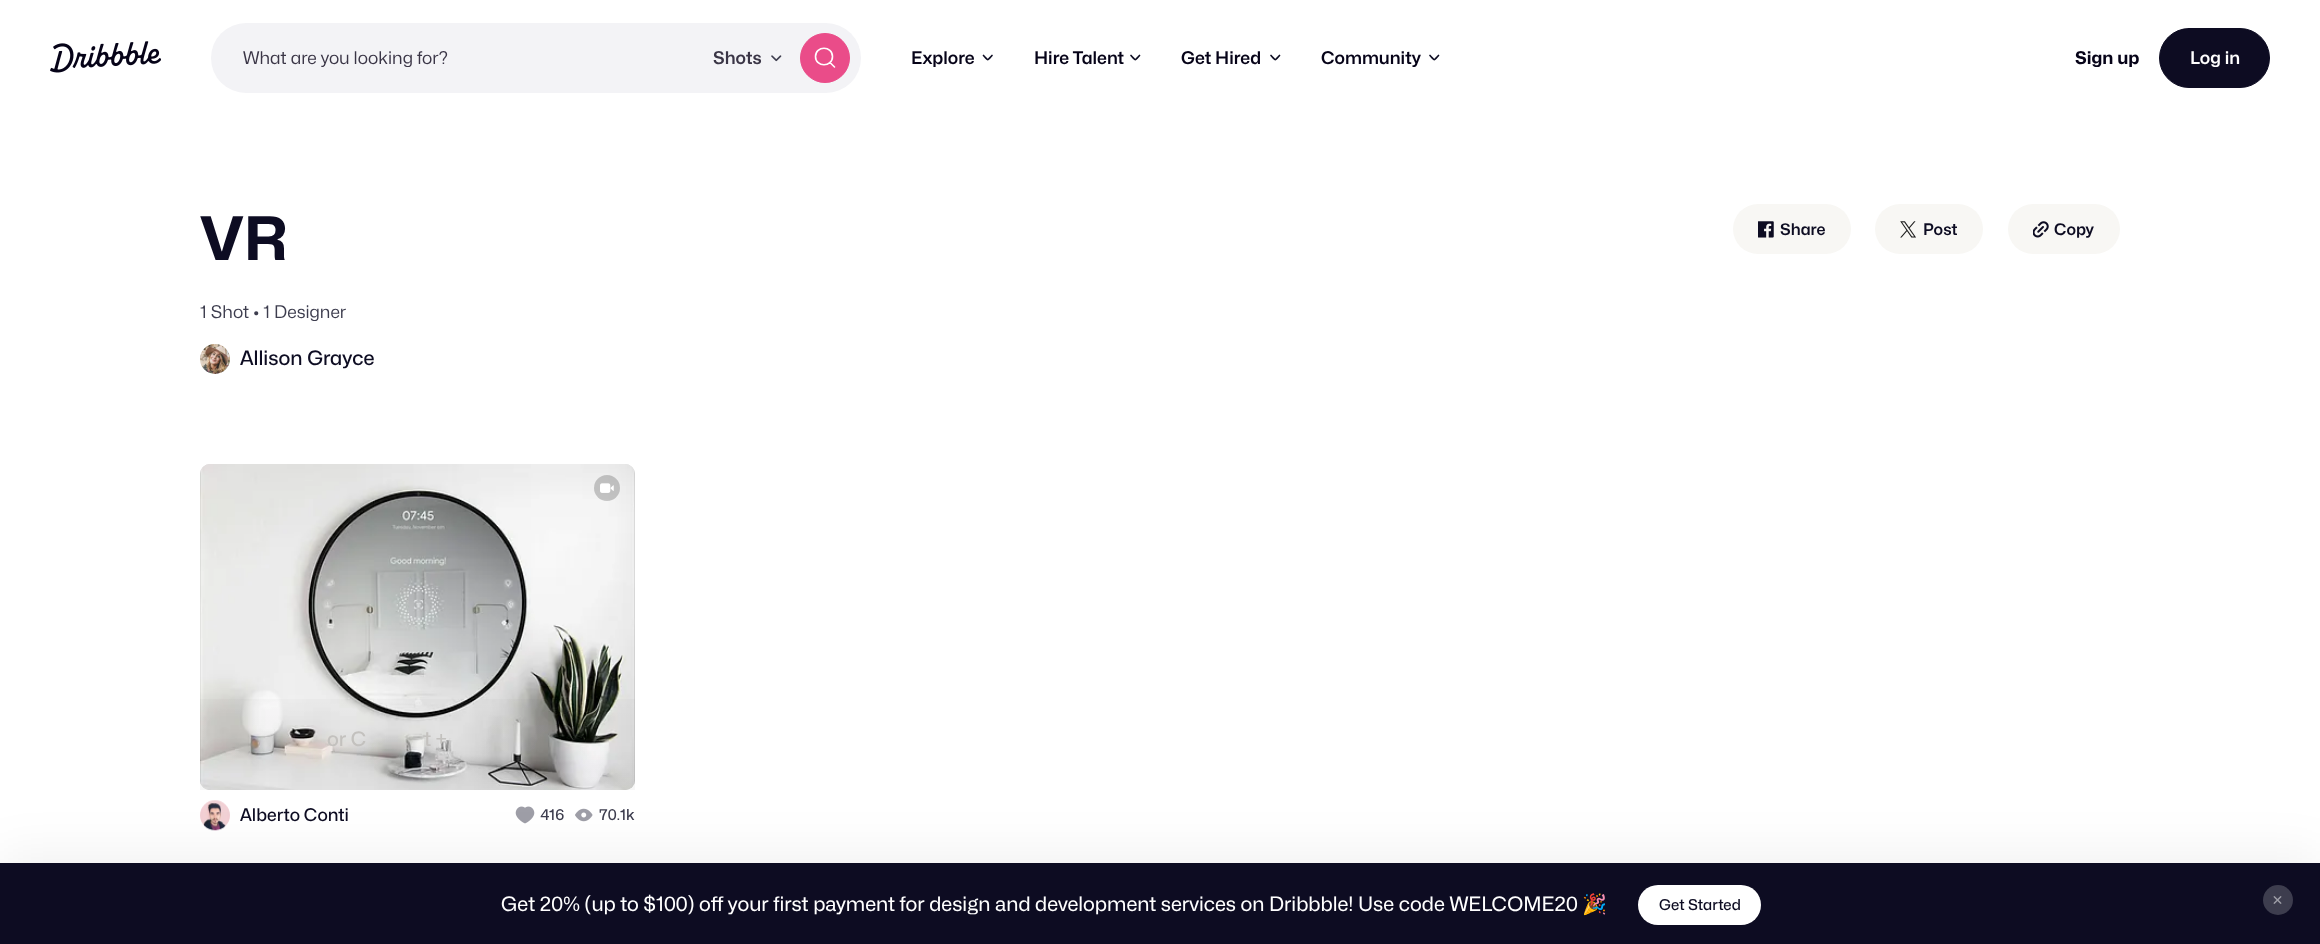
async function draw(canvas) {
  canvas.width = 2320
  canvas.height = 944
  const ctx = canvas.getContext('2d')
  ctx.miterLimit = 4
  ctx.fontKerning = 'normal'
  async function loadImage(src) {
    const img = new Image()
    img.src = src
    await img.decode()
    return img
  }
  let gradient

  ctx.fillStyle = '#fff'
  ctx.fillRect(0, 0, 2320, 944)
  ctx.drawImage(await loadImage('image0.png'), 50, 41, 111, 32)
  ctx.fillStyle = '#f3f3f6'
  ctx.beginPath()
  ctx.roundRect(211, 23, 650, 70, 35)
  ctx.fill()
  ctx.font = '17.5px Mona Sans'
  ctx.fillStyle = '#3a3546'
  ctx.fillText('What are you looking for?', 243, 64)
  ctx.font = '600 17.5px Mona Sans'
  ctx.fillText('Shots', 713, 64)
  ctx.drawImage(await loadImage('image1.png'), 771, 55, 11, 7)
  ctx.fillStyle = '#ea4c89'
  ctx.beginPath()
  ctx.arc(825, 58, 24.5, 0, 2 * Math.PI)
  ctx.fill()
  ctx.strokeStyle = '#ea4c89'
  ctx.stroke()
  ctx.beginPath()
  ctx.moveTo(834.5, 67)
  ctx.lineTo(830, 62.5)
  ctx.moveTo(832.5, 56.5)
  ctx.bezierCurveTo(832.5, 67.5, 815.5, 67.5, 815.5, 56.5)
  ctx.bezierCurveTo(815.5, 45.5, 832.5, 45.5, 832.5, 56.5)
  ctx.closePath()
  ctx.strokeStyle = '#fff'
  ctx.lineWidth = 1.6
  ctx.lineCap = 'round'
  ctx.lineJoin = 'round'
  ctx.stroke()
  ctx.fillStyle = '#060318'
  ctx.fillText('Explore', 911, 64)
  ctx.beginPath()
  ctx.moveTo(992, 55.5)
  ctx.bezierCurveTo(986.5, 61, 989, 61, 983.5, 55.5)
  ctx.strokeStyle = '#0d0c22'
  ctx.lineWidth = 1.7
  ctx.stroke()
  ctx.fillText('Hire Talent', 1034, 64)
  ctx.beginPath()
  ctx.moveTo(1139.5, 55.5)
  ctx.bezierCurveTo(1134, 61, 1136.5, 61, 1131, 55.5)
  ctx.stroke()
  ctx.fillText('Get Hired', 1181, 64)
  ctx.beginPath()
  ctx.moveTo(1279.5, 55.5)
  ctx.bezierCurveTo(1274, 61, 1276.5, 61, 1271, 55.5)
  ctx.stroke()
  ctx.fillText('Community', 1321, 64)
  ctx.beginPath()
  ctx.moveTo(1438.5, 55.5)
  ctx.bezierCurveTo(1433, 61, 1435.5, 61, 1430, 55.5)
  ctx.stroke()
  ctx.font = 'bold 17.5px Mona Sans'
  ctx.fillText('Sign up', 2075, 64)
  ctx.fillStyle = '#0d0c22'
  ctx.beginPath()
  ctx.roundRect(2159.5, 28.5, 110, 59, 29.5)
  ctx.fill()
  ctx.lineWidth = 1
  ctx.lineJoin = 'miter'
  ctx.stroke()
  ctx.font = '600 17.5px Mona Sans'
  ctx.fillStyle = '#fff'
  ctx.fillText('Log in', 2190, 64)
  ctx.font = 'bold 60px Mona Sans'
  ctx.fillStyle = '#0d0c22'
  ctx.fillText('VR', 200, 260)
  ctx.fillStyle = '#f8f7f4'
  ctx.beginPath()
  ctx.roundRect(1733, 204, 118, 50, 25)
  ctx.fill()
  ctx.drawImage(await loadImage('image2.png'), 1758, 221, 16, 17)
  ctx.font = '600 16px Mona Sans'
  ctx.fillStyle = '#0d0c22'
  ctx.fillText('Share', 1780, 235)
  ctx.fillStyle = '#f8f7f4'
  ctx.beginPath()
  ctx.roundRect(1875, 204, 108, 50, 25)
  ctx.fill()
  ctx.drawImage(await loadImage('image3.png'), 1900, 221, 16, 17)
  ctx.fillStyle = '#0d0c22'
  ctx.fillText('Post', 1923, 235)
  ctx.fillStyle = '#f8f7f4'
  ctx.beginPath()
  ctx.roundRect(2008, 204, 112, 50, 25)
  ctx.fill()
  ctx.drawImage(await loadImage('image4.png'), 2033, 221, 16, 17)
  ctx.fillStyle = '#0d0c22'
  ctx.fillText('Copy', 2054, 235)
  ctx.font = '17.5px Mona Sans'
  ctx.fillStyle = '#3d3d4e'
  ctx.fillText('1 Shot • 1 Designer', 200, 318)
  ctx.fillStyle = '#f3f3f4'
  ctx.beginPath()
  ctx.arc(215, 359, 15, 0, 2 * Math.PI)
  ctx.fill()
  ctx.drawImage(await loadImage('image5.png'), 200, 344, 30, 30)
  ctx.font = '500 20px Mona Sans'
  ctx.fillStyle = '#0d0c22'
  ctx.fillText('Allison Grayce', 240, 365)
  ctx.fillStyle = '#d7d7d6'
  ctx.beginPath()
  ctx.roundRect(200, 464, 435, 326, 10)
  ctx.fill()
  ctx.drawImage(await loadImage('image6.png'), 200, 464, 435, 326)
  ctx.fillStyle = '#00000033'
  ctx.beginPath()
  ctx.arc(607, 488, 13, 0, 2 * Math.PI)
  ctx.fill()
  ctx.drawImage(await loadImage('image7.png'), 600, 483, 14, 10)
  gradient = ctx.createLinearGradient(418, 464, 418, 790)
  gradient.addColorStop(0, '#00000000')
  gradient.addColorStop(0.15, '#00000000')
  gradient.addColorStop(0.23, '#00000000')
  gradient.addColorStop(0.29, '#00000000')
  gradient.addColorStop(0.35, '#00000003')
  gradient.addColorStop(0.41, '#00000003')
  gradient.addColorStop(0.47, '#00000005')
  gradient.addColorStop(0.53, '#00000005')
  gradient.addColorStop(0.59, '#00000005')
  gradient.addColorStop(0.65, '#00000005')
  gradient.addColorStop(0.71, '#00000005')
  gradient.addColorStop(0.78, '#00000008')
  gradient.addColorStop(0.84, '#00000008')
  gradient.addColorStop(0.92, '#00000008')
  gradient.addColorStop(1, '#00000008')
  ctx.fillStyle = gradient
  ctx.fillRect(200, 699, 435, 91)
  ctx.fillStyle = '#c3c1be'
  ctx.fillText('or C', 327, 746)
  ctx.fillText('t +', 424, 746)
  ctx.drawImage(await loadImage('image8.png'), 200, 800, 30, 31)
  ctx.font = '500 17.5px Mona Sans'
  ctx.fillStyle = '#0d0c22'
  ctx.fillText('Alberto Conti', 240, 821)
  ctx.drawImage(await loadImage('image9.png'), 515, 806, 20, 18)
  ctx.font = '500 15px Mona Sans'
  ctx.fillStyle = '#3d3d4e'
  ctx.fillText('416', 540, 820)
  ctx.drawImage(await loadImage('image10.png'), 575, 808, 18, 14)
  ctx.fillText('70.1k', 599, 820)
  ctx.fillStyle = '#0000000f'
  ctx.filter = 'blur(25px)'
  ctx.beginPath()
  ctx.rect(0, 855, 2320, 83)
  ctx.fill()
  ctx.filter = 'none'
  ctx.fillStyle = '#0d0c22'
  ctx.fillRect(0, 863, 2320, 81)
  ctx.font = '20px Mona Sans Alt'
  ctx.fillStyle = '#fff'
  ctx.fillText('Get 20% (up to $100) off your first payment for design and development services on Dribbble! Use code WELCOME20', 501, 911)
  ctx.font = '20px Noto Color Emoji'
  ctx.fillText('🎉', 1582, 911)
  ctx.beginPath()
  ctx.roundRect(1638, 885, 123, 40, 20)
  ctx.fill()
  ctx.font = '500 15px Mona Sans'
  ctx.fillStyle = '#0d0c22'
  ctx.fillText('Get Started', 1659, 910)
  ctx.fillStyle = '#3d3d4e'
  ctx.beginPath()
  ctx.arc(2278, 900, 15, 0, 2 * Math.PI)
  ctx.fill()
  ctx.drawImage(await loadImage('image11.png'), 2273, 896, 9, 8)
}

draw(document.querySelector('canvas'))
